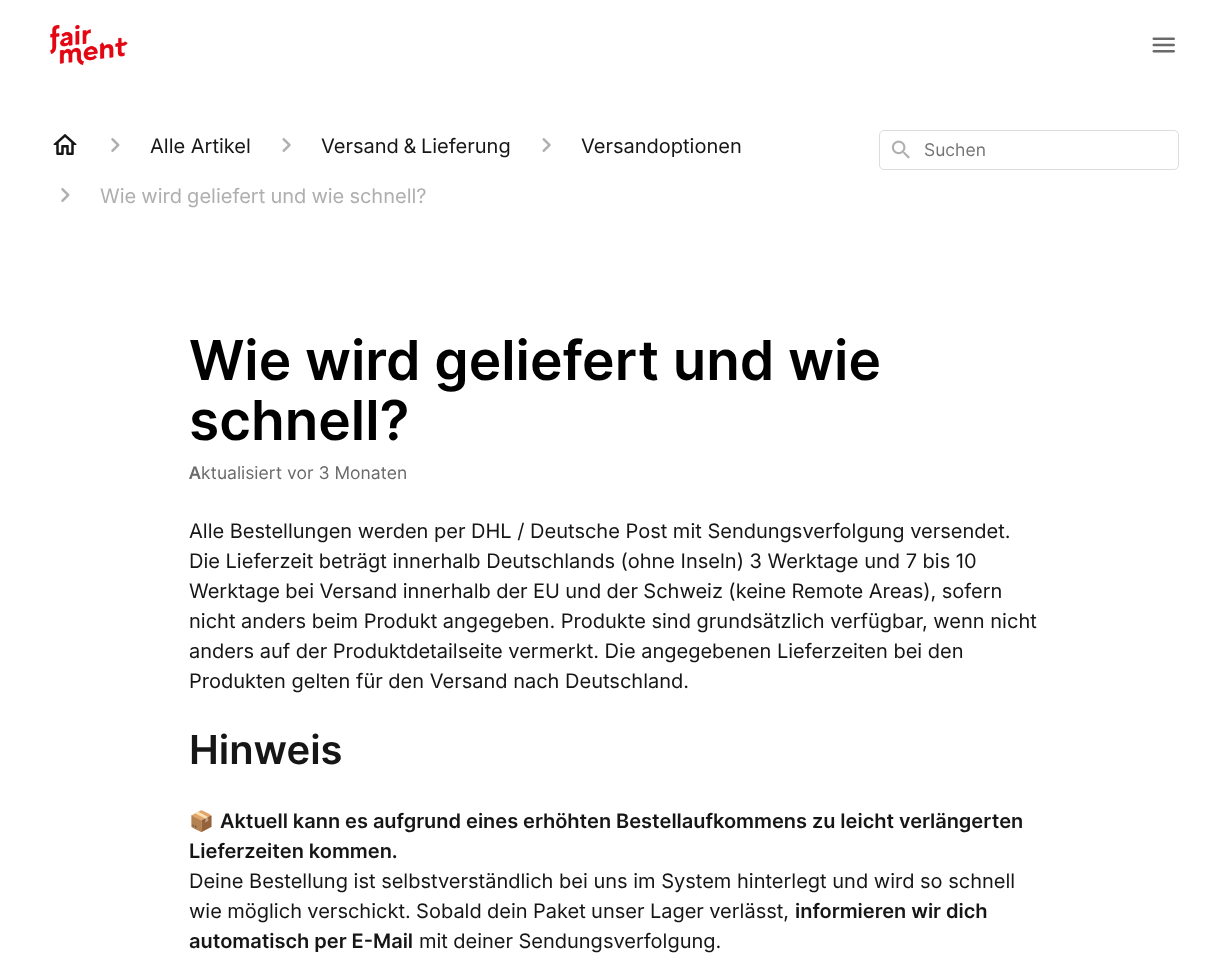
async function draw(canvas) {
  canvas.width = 1228
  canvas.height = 967
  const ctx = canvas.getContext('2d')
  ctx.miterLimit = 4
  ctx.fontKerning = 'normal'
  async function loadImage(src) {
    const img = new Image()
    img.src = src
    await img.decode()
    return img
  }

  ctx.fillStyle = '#fff'
  ctx.fillRect(0, 0, 1228, 967)
  ctx.drawImage(await loadImage('image0.png'), 50, 25, 78, 40)
  ctx.drawImage(await loadImage('image1.png'), 1152, 37, 23, 16)
  ctx.drawImage(await loadImage('image2.png'), 53, 134, 24, 21)
  ctx.drawImage(await loadImage('image3.png'), 111, 138, 9, 14)
  ctx.font = '20px Inter'
  ctx.fillStyle = '#161616'
  ctx.fillText('Alle Artikel', 150, 153)
  ctx.drawImage(await loadImage('image4.png'), 282, 138, 9, 14)
  ctx.wordSpacing = '-1px'
  ctx.fillText('Versand & Lieferung', 321, 153)
  ctx.drawImage(await loadImage('image4.png'), 542, 138, 9, 14)
  ctx.wordSpacing = '0px'
  ctx.fillText('Versandoptionen', 581, 153)
  ctx.drawImage(await loadImage('image3.png'), 61, 188, 9, 14)
  ctx.wordSpacing = '-0.5px'
  ctx.fillStyle = '#afafaf'
  ctx.fillText('Wie wird geliefert und wie schnell?', 100, 203)
  ctx.beginPath()
  ctx.roundRect(879.5, 130.5, 299, 39, 4.5)
  ctx.strokeStyle = '#ddd'
  ctx.stroke()
  ctx.drawImage(await loadImage('image5.png'), 891, 140, 19, 19)
  ctx.wordSpacing = '0px'
  ctx.font = '17.5px "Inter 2"'
  ctx.fillStyle = '#757575'
  ctx.fillText('Suchen', 924, 156)
  ctx.font = '600 55px Inter'
  ctx.fillStyle = '#000'
  ctx.fillText('Wie wird geliefert und wie', 189, 380)
  ctx.fillText('schnell?', 189, 440)
  ctx.font = '600 17.5px Noto Sans'
  ctx.fillStyle = '#6a6a6a'
  ctx.fillText('A', 189, 479)
  ctx.font = '17.5px "Inter 2"'
  ctx.fillText('ktualisiert vor 3 Monaten', 201, 479)
  ctx.font = '20px Inter'
  ctx.fillStyle = '#161616'
  ctx.fillText('Alle Bestellungen werden per DHL / Deutsche Post mit Sendungsverfolgung versendet.', 189, 538)
  ctx.fillText('Die Lieferzeit beträgt innerhalb Deutschlands (ohne Inseln) 3 Werktage und 7 bis 10', 189, 568)
  ctx.wordSpacing = '-0.25px'
  ctx.fillText('Werktage bei Versand innerhalb der EU und der Schweiz (keine Remote Areas), sofern', 189, 598)
  ctx.wordSpacing = '0px'
  ctx.fillText('nicht anders beim Produkt angegeben. Produkte sind grundsätzlich verfügbar, wenn nicht', 189, 628)
  ctx.fillText('anders auf der Produktdetailseite vermerkt. Die angegebenen Lieferzeiten bei den', 189, 658)
  ctx.fillText('Produkten gelten für den Versand nach Deutschland.', 189, 688)
  ctx.font = '600 40px Inter'
  ctx.fillText('Hinweis', 189, 764)
  ctx.font = '20px Noto Color Emoji'
  ctx.fillText('📦', 189, 828)
  ctx.font = '600 20px Inter'
  ctx.fillText('Aktuell kann es aufgrund eines erhöhten Bestellaufkommens zu leicht verlängerten', 220, 828)
  ctx.fillText('Lieferzeiten kommen.', 189, 858)
  ctx.font = '20px Inter'
  ctx.fillText('Deine Bestellung ist selbstverständlich bei uns im System hinterlegt und wird so schnell', 189, 888)
  ctx.wordSpacing = '-0.25px'
  ctx.fillText('wie möglich verschickt. Sobald dein Paket unser Lager verlässt,', 189, 918)
  ctx.wordSpacing = '0px'
  ctx.font = '600 20px Inter'
  ctx.fillText('informieren wir dich', 795, 918)
  ctx.fillText('automatisch per E-Mail', 189, 948)
  ctx.wordSpacing = '-0.25px'
  ctx.font = '20px Inter'
  ctx.fillText('mit deiner Sendungsverfolgung.', 419, 948)
}

draw(document.querySelector('canvas'))
